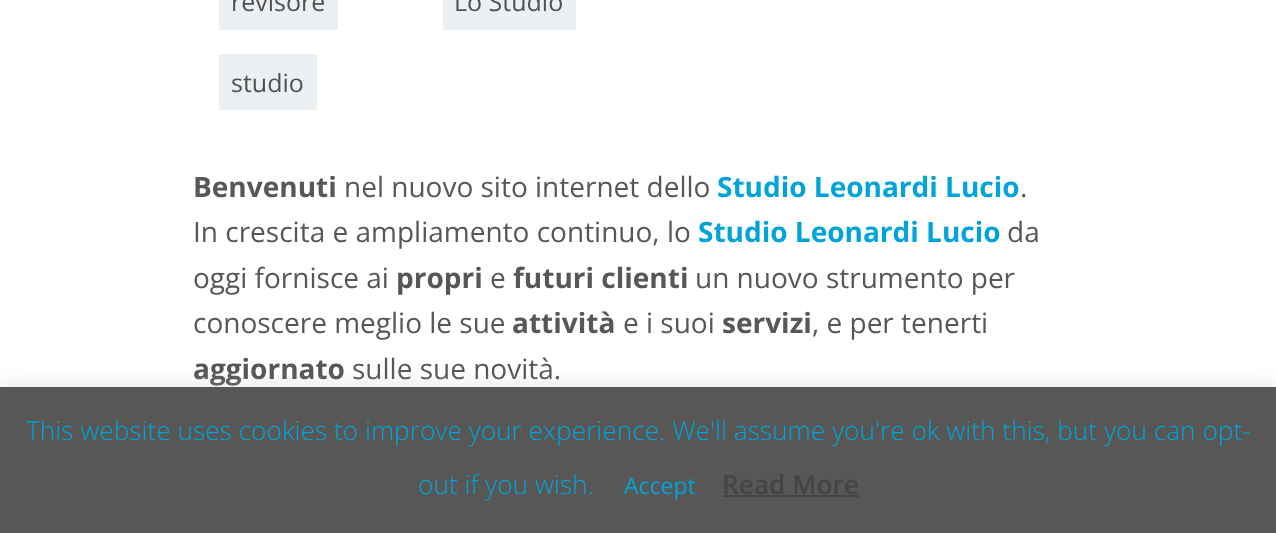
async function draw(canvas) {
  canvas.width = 1276
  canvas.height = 533
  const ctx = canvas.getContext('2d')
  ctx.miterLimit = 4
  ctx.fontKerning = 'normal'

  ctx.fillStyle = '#fff'
  ctx.fillRect(0, 0, 1276, 533)
  ctx.fillStyle = '#edf0f2'
  ctx.fillRect(219, 0, 119, 30)
  ctx.font = '25px Open Sans'
  ctx.fillStyle = '#515151'
  ctx.fillText('revisore', 231, 11)
  ctx.fillStyle = '#edf0f2'
  ctx.fillRect(219, 54, 98, 56)
  ctx.fillStyle = '#515151'
  ctx.fillText('studio', 231, 92)
  ctx.fillStyle = '#edf0f2'
  ctx.fillRect(443, 0, 133, 30)
  ctx.fillStyle = '#515151'
  ctx.fillText('Lo Studio', 454, 11)
  ctx.font = 'bold 28px Open Sans'
  ctx.fillStyle = '#585756'
  ctx.fillText('Benvenuti', 193, 197)
  ctx.font = '28px Open Sans'
  ctx.fillText('nel nuovo sito internet dello', 344, 197)
  ctx.font = 'bold 28px Open Sans'
  ctx.fillStyle = '#01a4d8'
  ctx.fillText('Studio Leonardi Lucio', 717, 197)
  ctx.font = '28px Open Sans'
  ctx.fillStyle = '#585756'
  ctx.fillText('.', 1020, 197)
  ctx.fillText('In crescita e ampliamento continuo, lo', 193, 242)
  ctx.font = 'bold 28px Open Sans'
  ctx.fillStyle = '#01a4d8'
  ctx.fillText('Studio Leonardi Lucio', 698, 242)
  ctx.font = '28px Open Sans'
  ctx.fillStyle = '#585756'
  ctx.fillText('da', 1007, 242)
  ctx.fillText('oggi fornisce ai', 193, 288)
  ctx.font = 'bold 28px Open Sans'
  ctx.fillText('propri', 396, 288)
  ctx.font = '28px Open Sans'
  ctx.fillText('e', 490, 288)
  ctx.font = 'bold 28px Open Sans'
  ctx.fillText('futuri clienti', 513, 288)
  ctx.font = '28px Open Sans'
  ctx.fillText('un nuovo strumento per', 695, 288)
  ctx.fillText('conoscere meglio le sue', 193, 333)
  ctx.font = 'bold 28px Open Sans'
  ctx.fillText('attività', 512, 333)
  ctx.font = '28px Open Sans'
  ctx.fillText('e i suoi', 623, 333)
  ctx.font = 'bold 28px Open Sans'
  ctx.fillText('servizi', 722, 333)
  ctx.font = '28px Open Sans'
  ctx.fillText(', e per tenerti', 812, 333)
  ctx.font = 'bold 28px Open Sans'
  ctx.fillText('aggiornato', 193, 379)
  ctx.font = '28px Open Sans'
  ctx.fillText('sulle sue novità.', 352, 379)
  ctx.fillStyle = '#acabab4d'
  ctx.filter = 'blur(9px)'
  ctx.beginPath()
  ctx.rect(0, 385, 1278, 147)
  ctx.fill()
  ctx.filter = 'none'
  ctx.fillStyle = '#585756'
  ctx.fillRect(0, 387, 1276, 146)
  ctx.font = '300 26.25px Open Sans'
  ctx.fillStyle = '#01a4d8'
  ctx.fillText('This website uses cookies to improve your experience. We\'ll assume you\'re ok with this, but you can opt-', 26, 440)
  ctx.fillText('out if you wish.', 418, 494)
  ctx.font = '23px Open Sans'
  ctx.fillText('Accept', 624, 494)
  ctx.font = '600 26.25px Open Sans'
  ctx.fillStyle = '#444'
  ctx.fillText('Read More', 722, 494)
  ctx.fillRect(723, 495, 136, 2)
}

draw(document.querySelector('canvas'))
